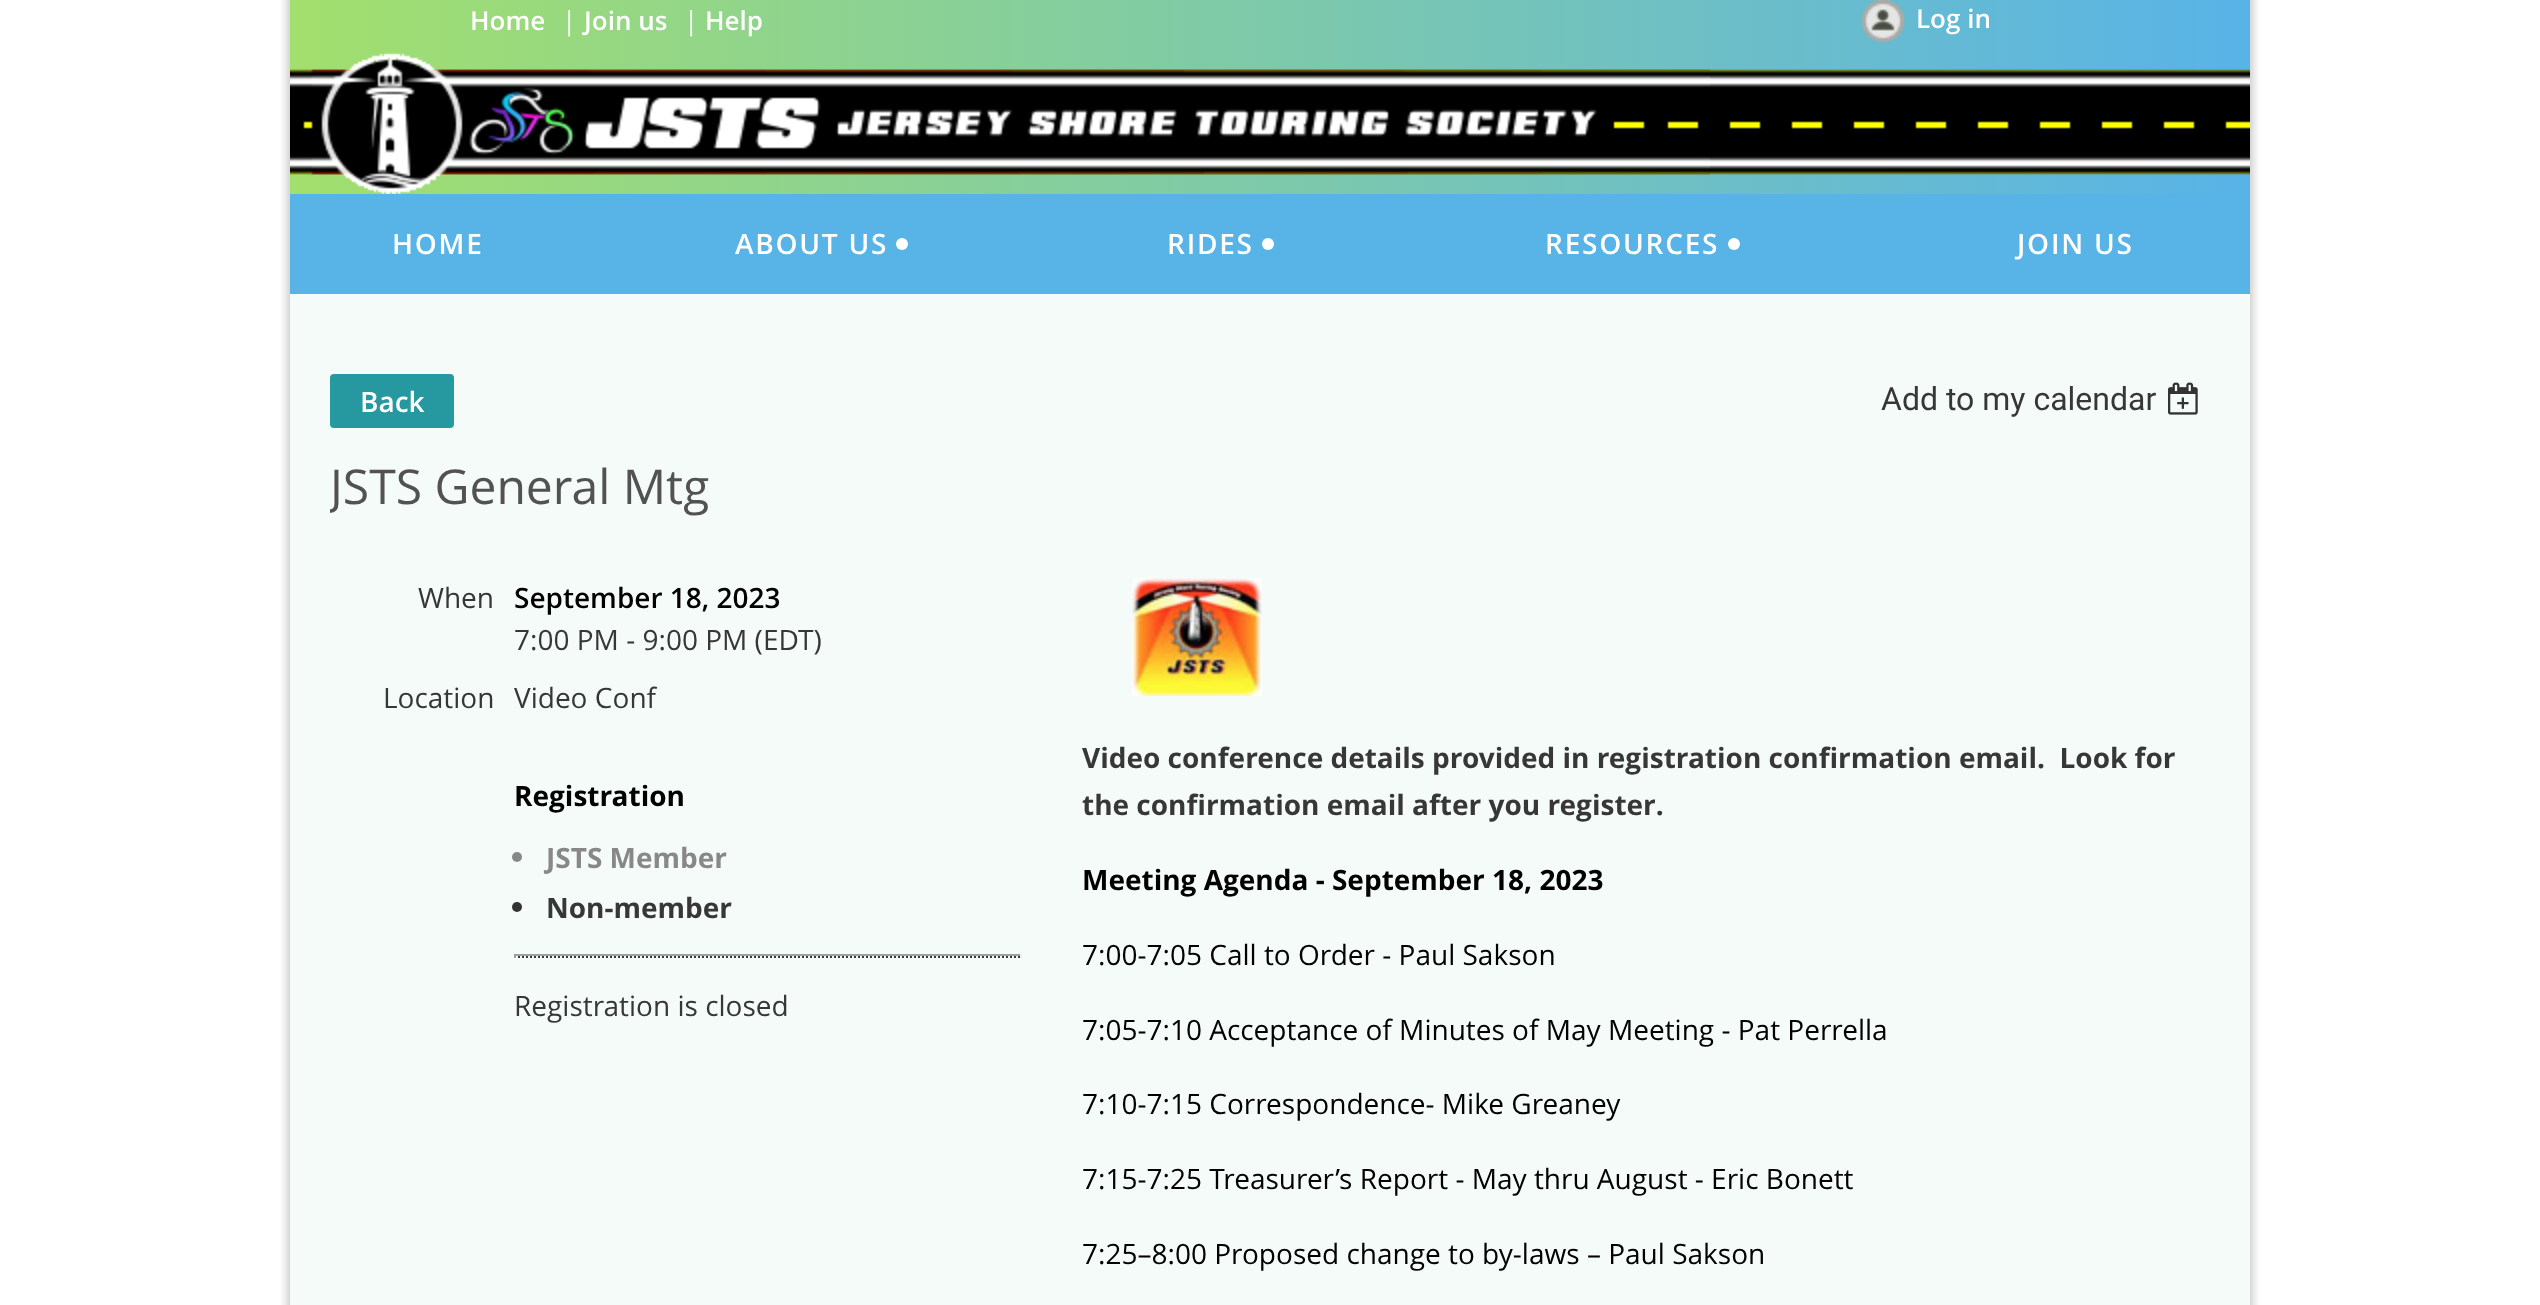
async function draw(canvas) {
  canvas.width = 2540
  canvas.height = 1305
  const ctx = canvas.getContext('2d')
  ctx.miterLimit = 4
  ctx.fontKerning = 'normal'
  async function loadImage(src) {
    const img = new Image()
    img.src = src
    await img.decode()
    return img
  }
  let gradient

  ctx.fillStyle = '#fff'
  ctx.fillRect(0, 0, 2540, 1305)
  ctx.drawImage(await loadImage('image0.png'), 281, 0, 1978, 50)
  gradient = ctx.createLinearGradient(290, 25, 2250, 25)
  gradient.addColorStop(0, '#a2df6e')
  gradient.addColorStop(1, '#58b3e7')
  ctx.fillStyle = gradient
  ctx.fillRect(290, 0, 1960, 50)
  ctx.font = '600 26px Open Sans'
  ctx.fillStyle = '#fff'
  ctx.fillText('Home', 470, 30)
  ctx.font = '26px Open Sans'
  ctx.fillText('|', 562, 30)
  ctx.font = '600 26px Open Sans'
  ctx.fillText('Join us', 584, 30)
  ctx.font = '26px Open Sans'
  ctx.fillText('|', 684, 30)
  ctx.font = '600 26px Open Sans'
  ctx.fillText('Help', 705, 30)
  ctx.drawImage(await loadImage('image1.png'), 1861, 0, 44, 43)
  ctx.fillText('Log in', 1916, 28)
  ctx.drawImage(await loadImage('image2.png'), 281, 50, 1978, 244)
  gradient = ctx.createLinearGradient(290, 172, 2250, 172)
  gradient.addColorStop(0, '#a2df6e')
  gradient.addColorStop(1, '#58b3e7')
  ctx.fillStyle = gradient
  ctx.fillRect(290, 50, 1960, 144)
  ctx.drawImage(await loadImage('image3.png'), 290, 69, 1960, 106)
  ctx.drawImage(await loadImage('image4.png'), 311, 53, 1399, 141)
  ctx.fillStyle = '#58b3e7'
  ctx.fillRect(290, 194, 1960, 100)
  ctx.letterSpacing = '1.75px'
  ctx.font = '600 28px Open Sans'
  ctx.fillStyle = '#fff'
  ctx.fillText('HOME', 392, 254)
  ctx.fillText('ABOUT US', 735, 254)
  ctx.beginPath()
  ctx.arc(902, 244, 6, 0, 2 * Math.PI)
  ctx.fill()
  ctx.fillText('RIDES', 1167, 254)
  ctx.beginPath()
  ctx.arc(1268, 244, 6, 0, 2 * Math.PI)
  ctx.fill()
  ctx.fillText('RESOURCES', 1545, 254)
  ctx.beginPath()
  ctx.arc(1734, 244, 6, 0, 2 * Math.PI)
  ctx.fill()
  ctx.fillText('JOIN US', 2017, 254)
  ctx.drawImage(await loadImage('image5.png'), 281, 294, 1978, 1011)
  ctx.fillStyle = '#f5fbf9'
  ctx.fillRect(290, 294, 1960, 1011)
  ctx.fillStyle = '#2699a0'
  ctx.beginPath()
  ctx.roundRect(330, 374, 124, 54, 4)
  ctx.fill()
  ctx.letterSpacing = '0px'
  ctx.fillStyle = '#fff'
  ctx.fillText('Back', 360, 412)
  ctx.font = '32px Roboto'
  ctx.fillStyle = '#373737'
  ctx.fillText('Add to my calendar', 1881, 410)
  ctx.drawImage(await loadImage('image6.png'), 2168, 382, 30, 33)
  ctx.save()
  ctx.beginPath()
  ctx.rect(330, 334, 1880, 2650)
  ctx.clip()
  ctx.font = '48px Open Sans'
  ctx.fillStyle = '#525252'
  ctx.fillText('JSTS General Mtg', 330, 504)
  ctx.restore()
  ctx.font = '28px Open Sans'
  ctx.fillText('When', 418, 608)
  ctx.font = '600 28px Open Sans'
  ctx.fillStyle = '#000'
  ctx.fillText('September 18, 2023', 514, 608)
  ctx.font = '28px Open Sans'
  ctx.fillStyle = '#373737'
  ctx.fillText('7:00 PM - 9:00 PM (EDT)', 514, 650)
  ctx.fillText('Location', 383, 708)
  ctx.fillText('Video Conf', 514, 708)
  ctx.font = 'bold 28px Open Sans'
  ctx.fillStyle = '#000'
  ctx.fillText('Registration', 514, 806)
  ctx.fillStyle = '#888'
  ctx.beginPath()
  ctx.arc(517, 857, 5, 0, 2 * Math.PI)
  ctx.fill()
  ctx.fillText('JSTS Member', 546, 868)
  ctx.fillStyle = '#333'
  ctx.beginPath()
  ctx.arc(517, 907, 5, 0, 2 * Math.PI)
  ctx.fill()
  ctx.fillStyle = '#373737'
  ctx.fillText('Non-member', 546, 918)
  ctx.fillStyle = '#9f9f9f'
  ctx.fillRect(514, 954, 508, 2)
  ctx.fillStyle = '#eee'
  ctx.fillRect(1020, 954, 2, 4)
  ctx.beginPath()
  ctx.moveTo(514, 957)
  ctx.lineTo(1022, 957)
  ctx.strokeStyle = '#3c3c3c'
  ctx.lineWidth = 2
  ctx.setLineDash([2, 2])
  ctx.stroke()
  ctx.fillStyle = '#9f9f9f'
  ctx.fillRect(514, 954, 2, 4)
  ctx.font = '28px Open Sans'
  ctx.fillStyle = '#373737'
  ctx.fillText('Registration is closed', 514, 1016)
  ctx.drawImage(await loadImage('image7.png'), 1132, 578, 130, 118)
  ctx.font = 'bold 28px Open Sans'
  ctx.fillText('Video conference details provided in registration confirmation email.  Look for', 1082, 768)
  ctx.fillText('the confirmation email after you register.', 1082, 815)
  ctx.fillStyle = '#000'
  ctx.fillText('Meeting Agenda - September 18, 2023', 1082, 890)
  ctx.font = '28px Open Sans'
  ctx.fillText('7:00-7:05 Call to Order - Paul Sakson', 1082, 965)
  ctx.fillText('7:05-7:10 Acceptance of Minutes of May Meeting - Pat Perrella', 1082, 1040)
  ctx.fillText('7:10-7:15 Correspondence- Mike Greaney', 1082, 1114)
  ctx.fillText('7:15-7:25 Treasurer’s Report - May thru August - Eric Bonett', 1082, 1189)
  ctx.fillText('7:25–8:00 Proposed change to by-laws – Paul Sakson', 1082, 1264)
}

draw(document.querySelector('canvas'))
